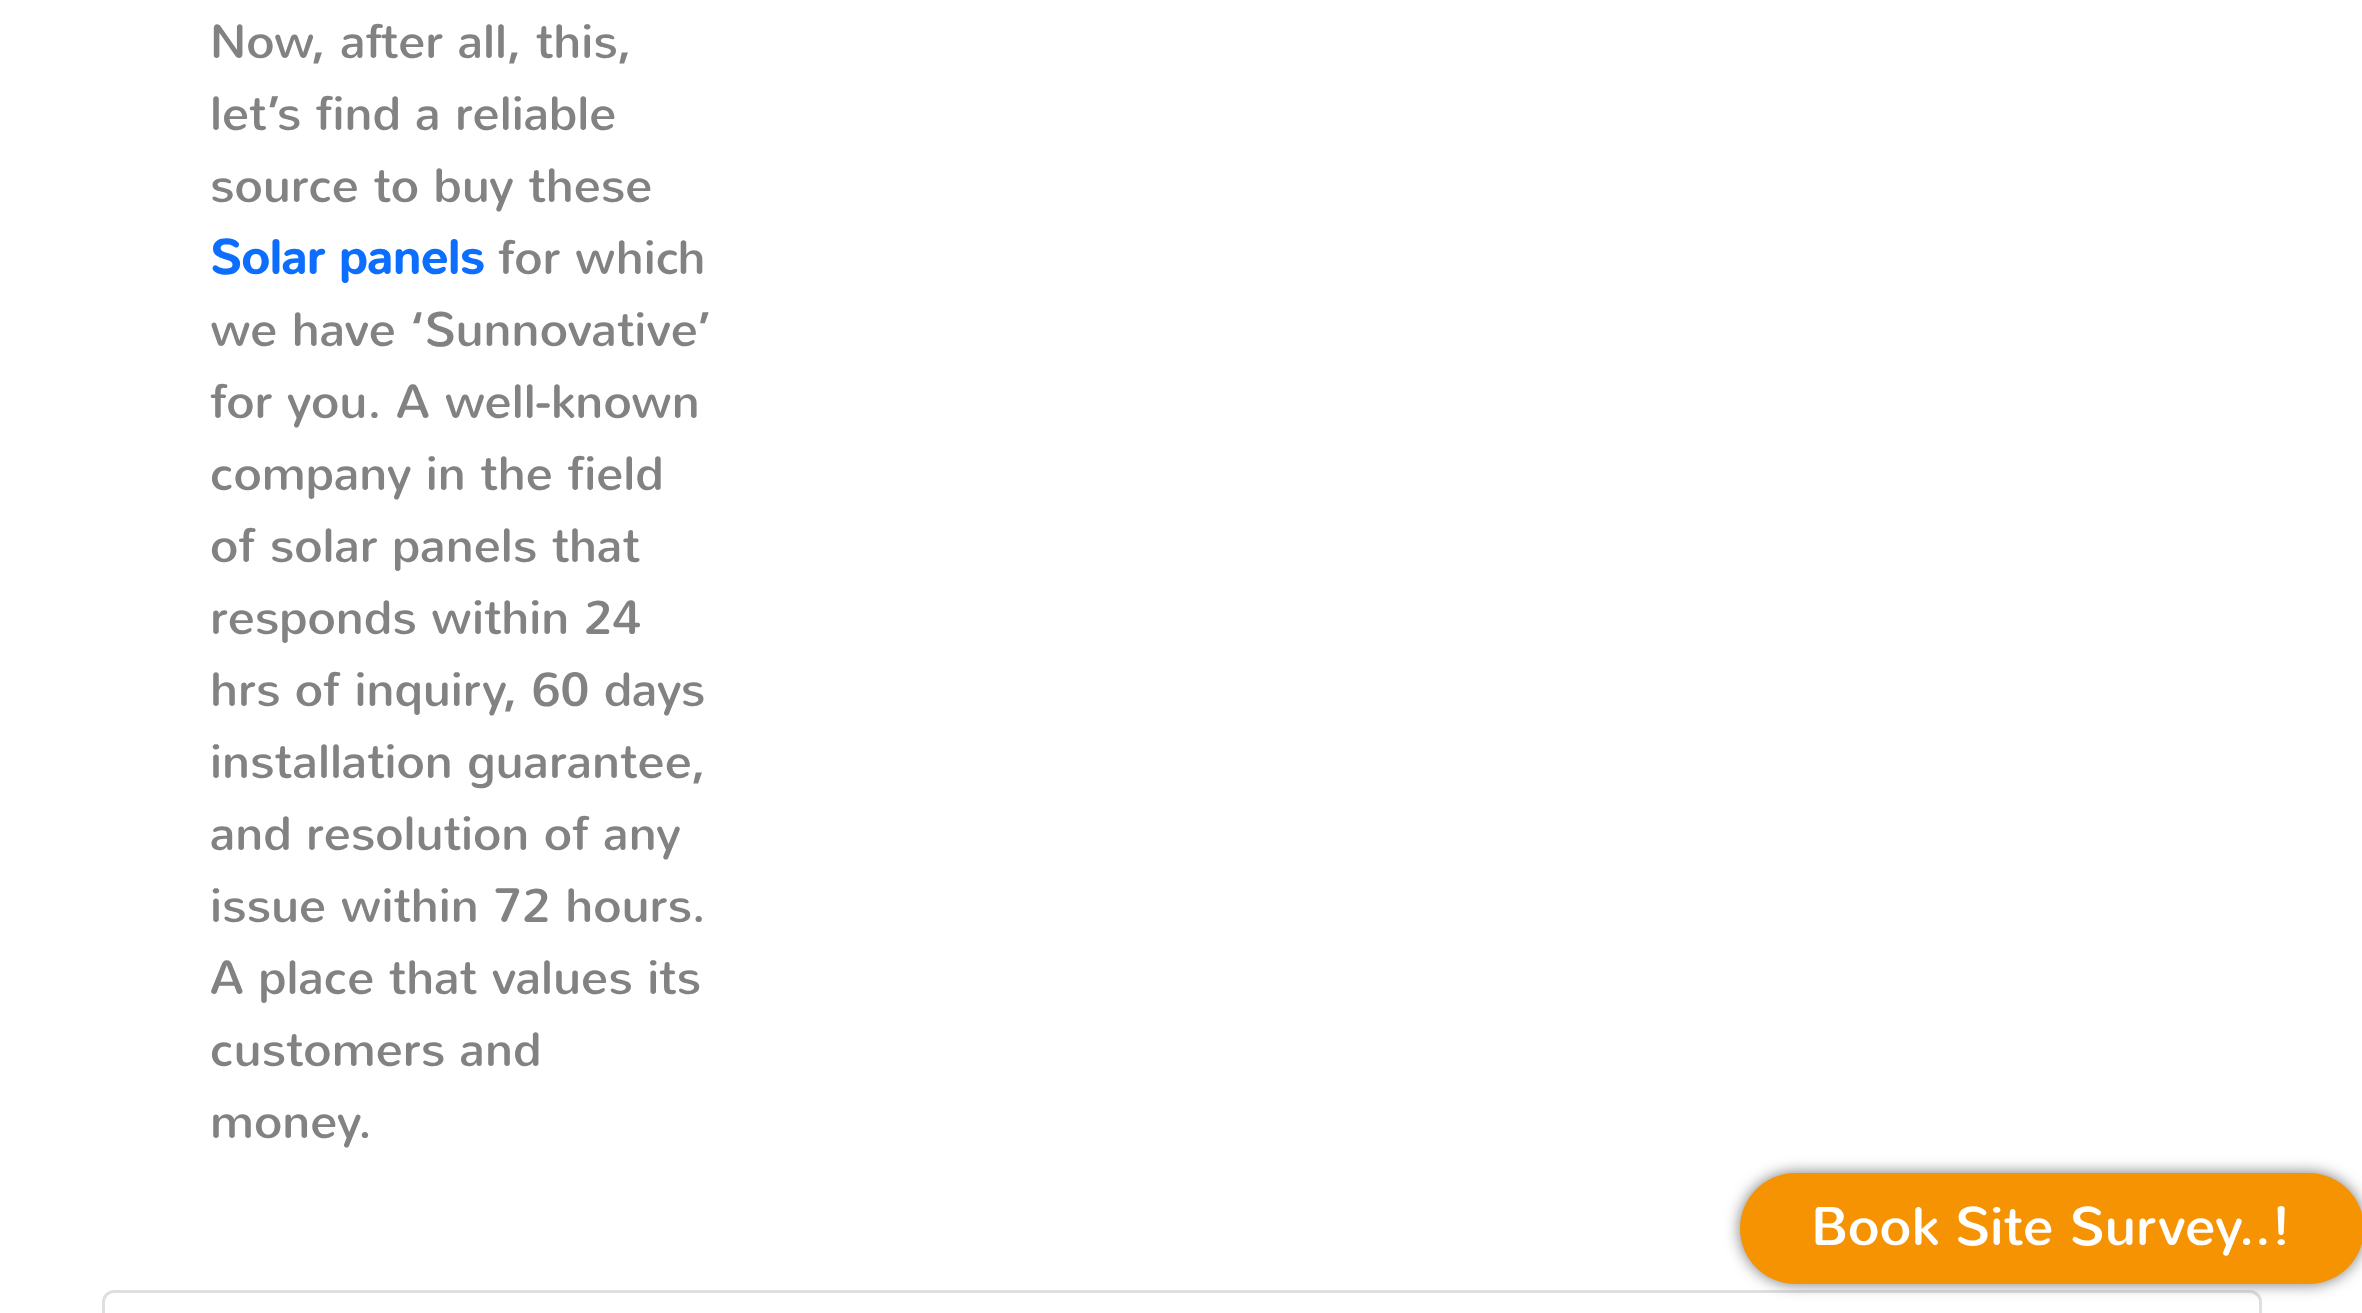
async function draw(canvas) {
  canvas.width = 2362
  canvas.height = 1313
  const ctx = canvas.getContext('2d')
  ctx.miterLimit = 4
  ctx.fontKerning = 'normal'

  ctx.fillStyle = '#fff'
  ctx.fillRect(0, 0, 2362, 1313)
  ctx.font = '48px Nunito'
  ctx.fillStyle = '#818281'
  ctx.fillText('Now, after all, this,', 210, 58)
  ctx.fillText('let’s find a reliable', 210, 130)
  ctx.fillText('source to buy these', 210, 202)
  ctx.font = 'bold 48px Nunito'
  ctx.fillStyle = '#0d6efd'
  ctx.fillText('Solar panels', 210, 274)
  ctx.font = '48px Nunito'
  ctx.fillStyle = '#818281'
  ctx.fillText('for which', 498, 274)
  ctx.fillText('we have ‘Sunnovative’', 210, 346)
  ctx.fillText('for you. A well-known', 210, 418)
  ctx.fillText('company in the field', 210, 490)
  ctx.fillText('of solar panels that', 210, 562)
  ctx.fillText('responds within 24', 210, 634)
  ctx.fillText('hrs of inquiry, 60 days', 210, 706)
  ctx.fillText('installation guarantee,', 210, 778)
  ctx.fillText('and resolution of any', 210, 850)
  ctx.fillText('issue within 72 hours.', 210, 922)
  ctx.fillText('A place that values its', 210, 994)
  ctx.fillText('customers and', 210, 1066)
  ctx.fillText('money.', 210, 1138)
  ctx.beginPath()
  ctx.roundRect(103.5, 1291.5, 2157, 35, 10.5)
  ctx.strokeStyle = '#dfdfdf'
  ctx.lineWidth = 3
  ctx.stroke()
  ctx.fillStyle = '#777'
  ctx.filter = 'blur(7.5px)'
  ctx.beginPath()
  ctx.roundRect(1740, 1173, 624, 111, 55.5)
  ctx.fill()
  ctx.filter = 'none'
  ctx.fillStyle = '#f59303'
  ctx.beginPath()
  ctx.roundRect(1740, 1173, 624, 111, 55.5)
  ctx.fill()
  ctx.font = '54px Nunito'
  ctx.fillStyle = '#fff'
  ctx.fillText('Book Site Survey..!', 1811, 1245)
}

draw(document.querySelector('canvas'))
